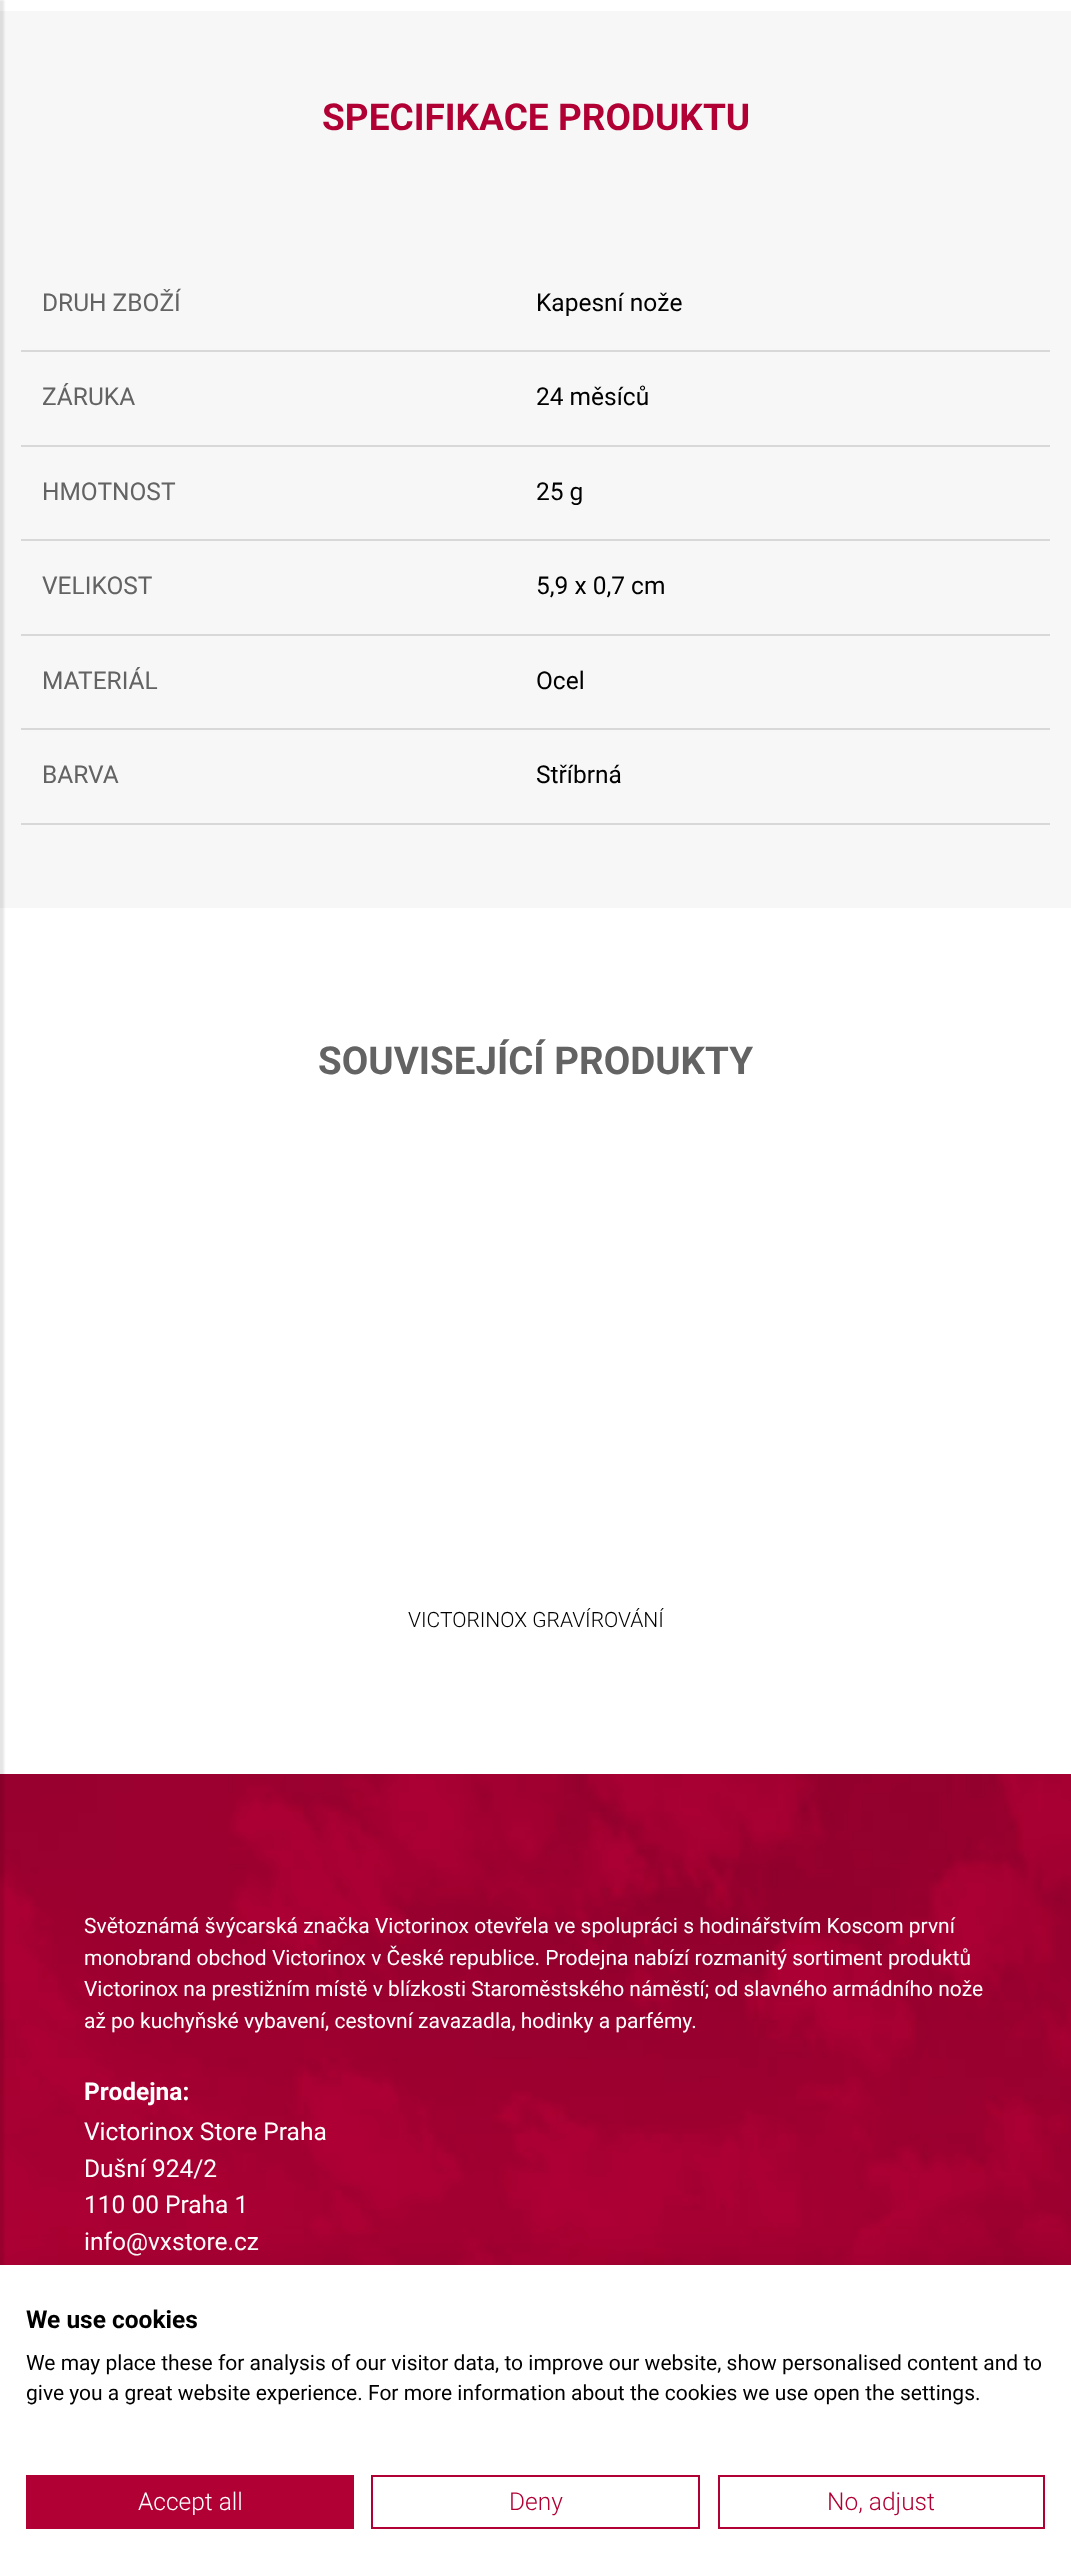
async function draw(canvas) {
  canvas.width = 1071
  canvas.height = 2576
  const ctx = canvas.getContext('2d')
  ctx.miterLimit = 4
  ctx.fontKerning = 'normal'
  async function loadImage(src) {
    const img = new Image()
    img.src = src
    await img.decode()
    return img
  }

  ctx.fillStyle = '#fff'
  ctx.fillRect(0, 0, 1071, 2576)
  ctx.fillStyle = '#f7f7f7'
  ctx.fillRect(0, 11, 1071, 897)
  ctx.drawImage(await loadImage('image0.png'), 0, 1774, 1071, 491)
  ctx.fillStyle = '#0000001a'
  ctx.filter = 'blur(1px)'
  ctx.beginPath()
  ctx.rect(-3, 0, 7, 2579)
  ctx.fill()
  ctx.filter = 'none'
  ctx.font = 'bold 37px Roboto'
  ctx.fillStyle = '#b10034'
  ctx.fillText('SPECIFIKACE PRODUKTU', 322, 130)
  ctx.fillStyle = '#d8d8d8'
  ctx.fillRect(21, 350, 1029, 2)
  ctx.font = '24.5px Roboto'
  ctx.fillStyle = '#636363'
  ctx.fillText('DRUH ZBOŽÍ', 42, 311)
  ctx.fillStyle = '#000'
  ctx.fillText('Kapesní nože', 536, 311)
  ctx.fillStyle = '#d8d8d8'
  ctx.fillRect(21, 445, 1029, 2)
  ctx.fillStyle = '#636363'
  ctx.fillText('ZÁRUKA', 42, 405)
  ctx.fillStyle = '#000'
  ctx.fillText('24 měsíců', 536, 405)
  ctx.fillStyle = '#d8d8d8'
  ctx.fillRect(21, 539, 1029, 2)
  ctx.fillStyle = '#636363'
  ctx.fillText('HMOTNOST', 42, 500)
  ctx.fillStyle = '#000'
  ctx.fillText('25 g', 536, 500)
  ctx.fillStyle = '#d8d8d8'
  ctx.fillRect(21, 634, 1029, 2)
  ctx.fillStyle = '#636363'
  ctx.fillText('VELIKOST', 42, 594)
  ctx.fillStyle = '#000'
  ctx.fillText('5,9 x 0,7 cm', 536, 594)
  ctx.fillStyle = '#d8d8d8'
  ctx.fillRect(21, 728, 1029, 2)
  ctx.fillStyle = '#636363'
  ctx.fillText('MATERIÁL', 42, 689)
  ctx.fillStyle = '#000'
  ctx.fillText('Ocel', 536, 689)
  ctx.fillStyle = '#d8d8d8'
  ctx.fillRect(21, 823, 1029, 2)
  ctx.fillStyle = '#636363'
  ctx.fillText('BARVA', 42, 783)
  ctx.fillStyle = '#000'
  ctx.fillText('Stříbrná', 536, 783)
  ctx.font = 'bold 38.5px Roboto'
  ctx.fillStyle = '#636363'
  ctx.fillText('SOUVISEJÍCÍ PRODUKTY', 318, 1074)
  ctx.font = '300 21px Roboto'
  ctx.fillStyle = '#000'
  ctx.fillText('VICTORINOX GRAVÍROVÁNÍ', 408, 1627)
  ctx.font = '21px Roboto'
  ctx.fillStyle = '#fff'
  ctx.fillText('Světoznámá švýcarská značka Victorinox otevřela ve spolupráci s hodinářstvím Koscom první', 84, 1933)
  ctx.fillText('monobrand obchod Victorinox v České republice. Prodejna nabízí rozmanitý sortiment produktů', 84, 1965)
  ctx.fillText('Victorinox na prestižním místě v blízkosti Staroměstského náměstí; od slavného armádního nože', 84, 1996)
  ctx.fillText('až po kuchyňské vybavení, cestovní zavazadla, hodinky a parfémy.', 84, 2028)
  ctx.font = 'bold 24.5px Roboto'
  ctx.fillText('Prodejna:', 84, 2100)
  ctx.font = '24.5px Roboto'
  ctx.fillText('Victorinox Store Praha', 84, 2140)
  ctx.fillText('Dušní 924/2', 84, 2177)
  ctx.fillText('110 00 Praha 1', 84, 2213)
  ctx.fillText('info@vxstore.cz', 84, 2250)
  ctx.fillStyle = '#0000001a'
  ctx.filter = 'blur(21px)'
  ctx.beginPath()
  ctx.rect(0, 2265, 1071, 311)
  ctx.fill()
  ctx.filter = 'none'
  ctx.fillStyle = '#fff'
  ctx.fillRect(0, 2265, 1071, 311)
  ctx.font = 'bold 24.5px Roboto'
  ctx.fillStyle = '#000'
  ctx.fillText('We use cookies', 26, 2328)
  ctx.font = '21px Roboto'
  ctx.fillText('We may place these for analysis of our visitor data, to improve our website, show personalised content and to', 26, 2370)
  ctx.fillText('give you a great website experience. For more information about the cookies we use open the settings.', 26, 2400)
  ctx.fillStyle = '#b10034'
  ctx.fillRect(26, 2475, 328, 54)
  ctx.font = '300 24.5px Roboto'
  ctx.fillStyle = '#fff'
  ctx.fillText('Accept all', 138, 2510)
  ctx.strokeStyle = '#b10034'
  ctx.lineWidth = 2
  ctx.strokeRect(372, 2476, 327, 52)
  ctx.fillStyle = '#b10034'
  ctx.fillText('Deny', 509, 2510)
  ctx.strokeRect(719, 2476, 325, 52)
  ctx.fillText('No, adjust', 827, 2510)
}

draw(document.querySelector('canvas'))
